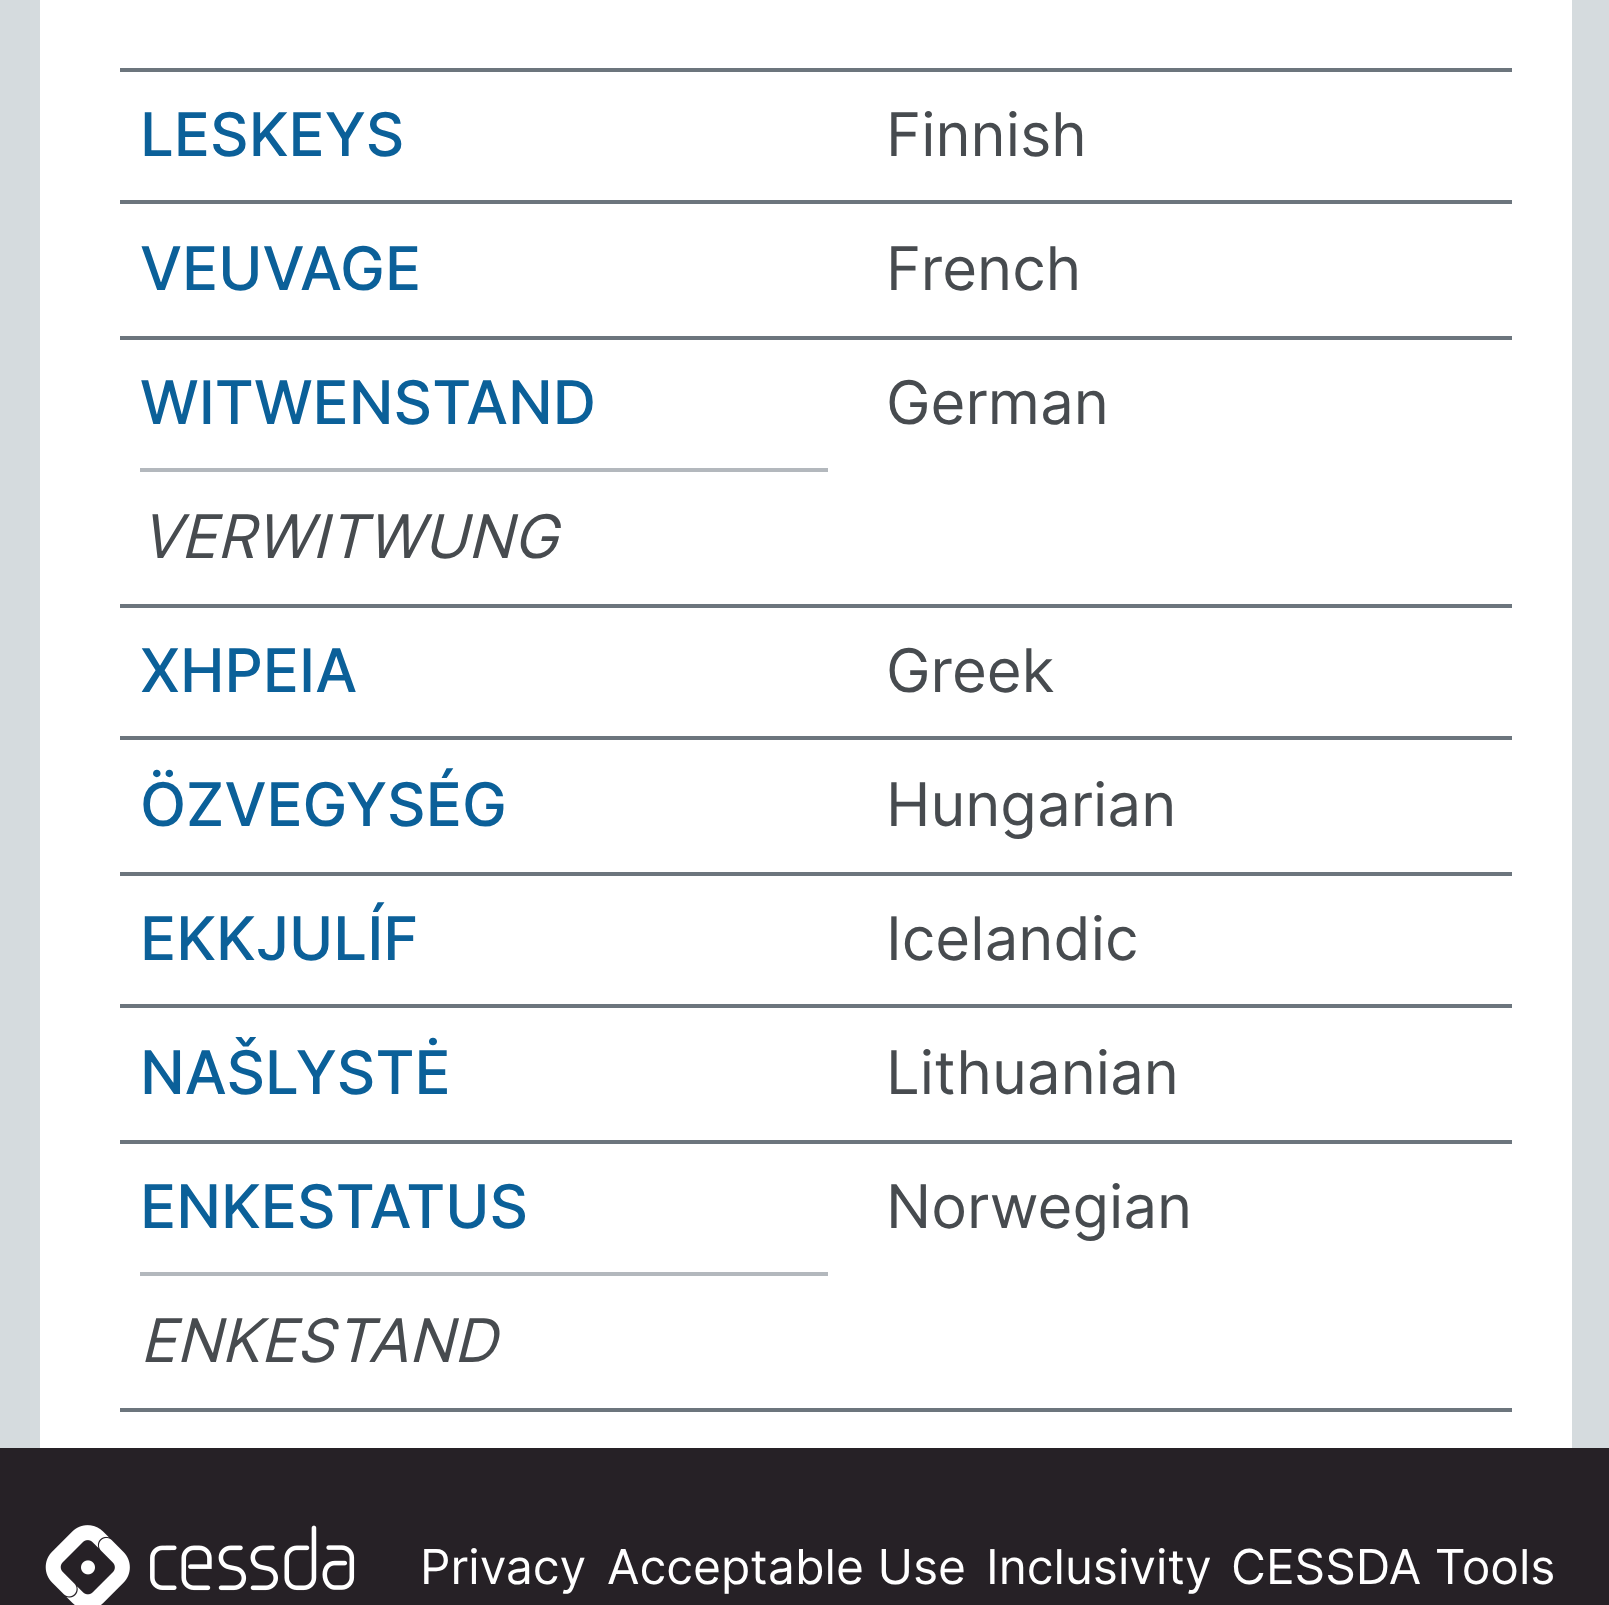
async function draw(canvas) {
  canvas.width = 1609
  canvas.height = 1605
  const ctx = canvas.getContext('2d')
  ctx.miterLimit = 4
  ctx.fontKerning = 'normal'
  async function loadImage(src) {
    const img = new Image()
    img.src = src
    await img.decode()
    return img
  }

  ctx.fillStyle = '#d5dbde'
  ctx.fillRect(0, 0, 1609, 1605)
  ctx.fillStyle = '#fff'
  ctx.fillRect(40, 0, 1532, 1448)
  ctx.fillStyle = '#6c757d'
  ctx.fillRect(120, 68, 1392, 4)
  ctx.font = '500 60px Inter'
  ctx.fillStyle = '#0b6099'
  ctx.fillText('LESKEYS', 140, 156)
  ctx.font = '60px Inter'
  ctx.fillStyle = '#474b4f'
  ctx.fillText('Finnish', 886, 156)
  ctx.fillStyle = '#6c757d'
  ctx.fillRect(120, 200, 1392, 4)
  ctx.font = '500 60px Inter'
  ctx.fillStyle = '#0b6099'
  ctx.fillText('VEUVAGE', 140, 290)
  ctx.font = '60px Inter'
  ctx.fillStyle = '#474b4f'
  ctx.fillText('French', 886, 290)
  ctx.fillStyle = '#6c757d'
  ctx.fillRect(120, 336, 1392, 4)
  ctx.font = '500 60px Inter'
  ctx.fillStyle = '#0b6099'
  ctx.fillText('WITWENSTAND', 140, 424)
  ctx.font = '60px Inter'
  ctx.fillStyle = '#474b4f'
  ctx.fillText('German', 886, 424)
  ctx.fillStyle = '#b3b8bd'
  ctx.fillRect(140, 468, 688, 4)
  ctx.font = 'italic 60px Inter'
  ctx.fillStyle = '#474b4f'
  ctx.fillText('VERWITWUNG', 140, 558)
  ctx.fillStyle = '#6c757d'
  ctx.fillRect(120, 604, 1392, 4)
  ctx.font = '500 60px Inter'
  ctx.fillStyle = '#0b6099'
  ctx.fillText('ΧΗΡΕΙΑ', 140, 692)
  ctx.font = '60px Inter'
  ctx.fillStyle = '#474b4f'
  ctx.fillText('Greek', 886, 692)
  ctx.fillStyle = '#6c757d'
  ctx.fillRect(120, 736, 1392, 4)
  ctx.font = '500 60px Inter'
  ctx.fillStyle = '#0b6099'
  ctx.fillText('ÖZVEGYSÉG', 140, 826)
  ctx.font = '60px Inter'
  ctx.fillStyle = '#474b4f'
  ctx.fillText('Hungarian', 886, 826)
  ctx.fillStyle = '#6c757d'
  ctx.fillRect(120, 872, 1392, 4)
  ctx.font = '500 60px Inter'
  ctx.fillStyle = '#0b6099'
  ctx.fillText('EKKJULÍF', 140, 960)
  ctx.font = '60px Inter'
  ctx.fillStyle = '#474b4f'
  ctx.fillText('Icelandic', 886, 960)
  ctx.fillStyle = '#6c757d'
  ctx.fillRect(120, 1004, 1392, 4)
  ctx.font = '500 60px Inter'
  ctx.fillStyle = '#0b6099'
  ctx.fillText('NAŠLYSTĖ', 140, 1094)
  ctx.font = '60px Inter'
  ctx.fillStyle = '#474b4f'
  ctx.fillText('Lithuanian', 886, 1094)
  ctx.fillStyle = '#6c757d'
  ctx.fillRect(120, 1140, 1392, 4)
  ctx.font = '500 60px Inter'
  ctx.fillStyle = '#0b6099'
  ctx.fillText('ENKESTATUS', 140, 1228)
  ctx.font = '60px Inter'
  ctx.fillStyle = '#474b4f'
  ctx.fillText('Norwegian', 886, 1228)
  ctx.fillStyle = '#b3b8bd'
  ctx.fillRect(140, 1272, 688, 4)
  ctx.font = 'italic 60px Inter'
  ctx.fillStyle = '#474b4f'
  ctx.fillText('ENKESTAND', 140, 1362)
  ctx.fillStyle = '#6c757d'
  ctx.fillRect(120, 1408, 1392, 4)
  ctx.fillStyle = '#262126'
  ctx.fillRect(0, 1448, 1609, 157)
  ctx.drawImage(await loadImage('image0.png'), 45, 1525, 310, 80)
  ctx.font = '48px Inter'
  ctx.fillStyle = '#fff'
  ctx.fillText('Privacy', 420, 1584)
  ctx.fillText('Acceptable Use', 607, 1584)
  ctx.fillText('Inclusivity', 986, 1584)
  ctx.fillText('CESSDA Tools', 1231, 1584)
}

draw(document.querySelector('canvas'))
